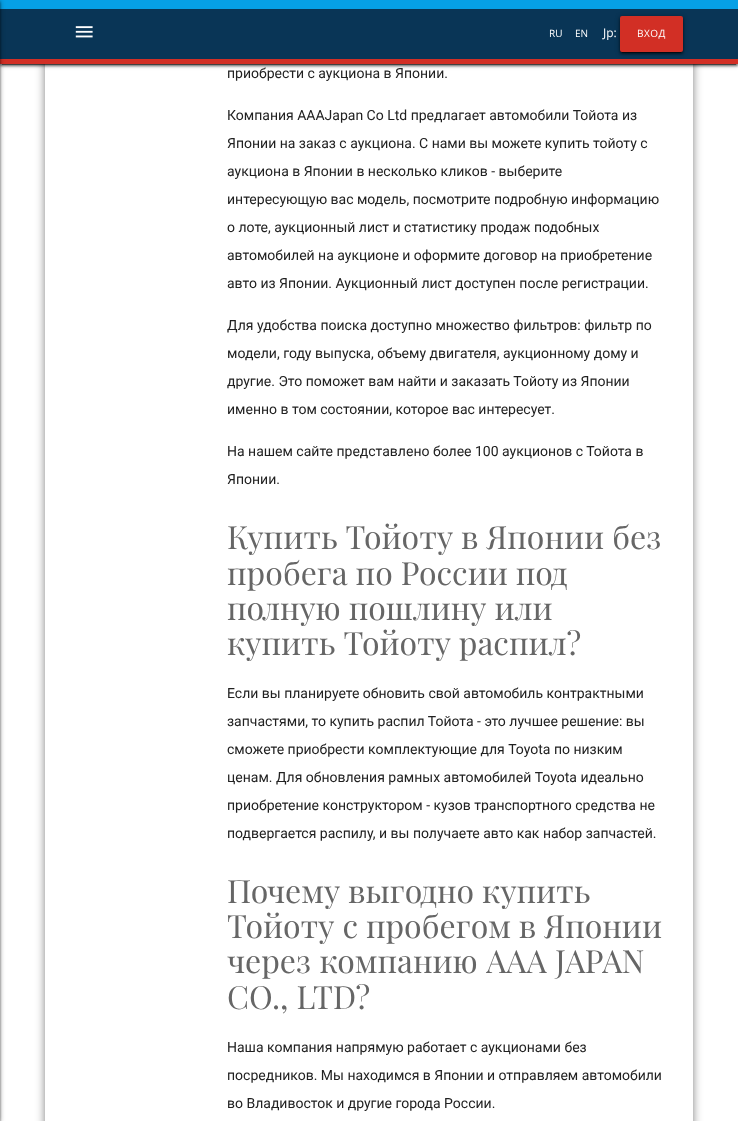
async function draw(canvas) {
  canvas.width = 738
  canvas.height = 1121
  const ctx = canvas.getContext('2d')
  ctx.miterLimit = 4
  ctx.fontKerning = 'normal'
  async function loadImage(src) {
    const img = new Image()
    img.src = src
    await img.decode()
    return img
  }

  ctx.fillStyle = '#fff'
  ctx.fillRect(0, 0, 738, 1121)
  ctx.fillStyle = '#0000006b'
  ctx.filter = 'blur(0.5px)'
  ctx.beginPath()
  ctx.rect(2, 5, 734, 60)
  ctx.fill()
  ctx.filter = 'none'
  ctx.filter = 'blur(2.5px)'
  ctx.beginPath()
  ctx.rect(0, 1, 738, 64)
  ctx.fill()
  ctx.filter = 'none'
  ctx.fillStyle = '#00000070'
  ctx.filter = 'blur(1px)'
  ctx.beginPath()
  ctx.rect(0, 2, 738, 64)
  ctx.fill()
  ctx.filter = 'none'
  ctx.save()
  ctx.beginPath()
  ctx.moveTo(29, 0)
  ctx.lineTo(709, 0)
  ctx.lineTo(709, 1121)
  ctx.lineTo(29, 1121)
  ctx.closePath()
  ctx.moveTo(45, -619)
  ctx.lineTo(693, -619)
  ctx.lineTo(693, 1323)
  ctx.lineTo(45, 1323)
  ctx.closePath()
  ctx.clip('evenodd')
  ctx.fillStyle = '#00000080'
  ctx.filter = 'blur(5px)'
  ctx.beginPath()
  ctx.rect(45, -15, 648, 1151)
  ctx.fill()
  ctx.filter = 'none'
  ctx.restore()
  ctx.fillStyle = '#093556'
  ctx.fillRect(0, 9, 738, 50)
  ctx.fillStyle = '#d22f25'
  ctx.fillRect(0, 59, 738, 5)
  ctx.fillStyle = '#06a0e6'
  ctx.fillRect(0, 0, 738, 9)
  ctx.fillStyle = '#0000006b'
  ctx.filter = 'blur(2.5px)'
  ctx.beginPath()
  ctx.rect(-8, 1, 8, 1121)
  ctx.fill()
  ctx.filter = 'none'
  ctx.fillStyle = '#00000070'
  ctx.filter = 'blur(1px)'
  ctx.beginPath()
  ctx.rect(-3, 2, 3, 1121)
  ctx.fill()
  ctx.filter = 'none'
  ctx.drawImage(await loadImage('image0.png'), 75, 26, 18, 12)
  ctx.font = '10px Open Sans'
  ctx.fillStyle = '#fff'
  ctx.fillText('RU', 549, 37)
  ctx.fillText('EN', 575, 37)
  ctx.font = '12px Open Sans'
  ctx.fillText('Jp:', 603, 37)
  ctx.fillStyle = '#0000006b'
  ctx.filter = 'blur(0.5px)'
  ctx.beginPath()
  ctx.rect(622, 21, 59, 32)
  ctx.fill()
  ctx.filter = 'none'
  ctx.filter = 'blur(2.5px)'
  ctx.beginPath()
  ctx.roundRect(620, 17, 63, 36, 2)
  ctx.fill()
  ctx.filter = 'none'
  ctx.fillStyle = '#00000070'
  ctx.filter = 'blur(1px)'
  ctx.beginPath()
  ctx.roundRect(620, 18, 63, 36, 2)
  ctx.fill()
  ctx.filter = 'none'
  ctx.fillStyle = '#d22f25'
  ctx.beginPath()
  ctx.roundRect(620, 16, 63, 36, 2)
  ctx.fill()
  ctx.letterSpacing = '0.5px'
  ctx.font = '10px Open Sans'
  ctx.fillStyle = '#fff'
  ctx.fillText('ВХОД', 637, 37)
  ctx.letterSpacing = '0px'
  ctx.font = '14px Roboto'
  ctx.fillStyle = '#212121'
  ctx.fillText('приобрести с аукциона в Японии.', 227, 78)
  ctx.fillText('Компания AAAJapan Co Ltd предлагает автомобили Тойота из', 227, 120)
  ctx.fillText('Японии на заказ с аукциона. С нами вы можете купить тойоту с', 227, 148)
  ctx.fillText('аукциона в Японии в несколько кликов - выберите', 227, 176)
  ctx.fillText('интересующую вас модель, посмотрите подробную информацию', 227, 204)
  ctx.fillText('о лоте, аукционный лист и статистику продаж подобных', 227, 232)
  ctx.fillText('автомобилей на аукционе и оформите договор на приобретение', 227, 260)
  ctx.fillText('авто из Японии. Аукционный лист доступен после регистрации.', 227, 288)
  ctx.fillText('Для удобства поиска доступно множество фильтров: фильтр по', 227, 330)
  ctx.fillText('модели, году выпуска, объему двигателя, аукционному дому и', 227, 358)
  ctx.fillText('другие. Это поможет вам найти и заказать Тойоту из Японии', 227, 386)
  ctx.fillText('именно в том состоянии, которое вас интересует.', 227, 414)
  ctx.fillText('На нашем сайте представлено более 100 аукционов с Тойота в', 227, 456)
  ctx.fillText('Японии.', 227, 484)
  ctx.font = '32px Playfair Display'
  ctx.fillStyle = '#666'
  ctx.fillText('Купить Тойоту в Японии без', 227, 549)
  ctx.fillText('пробега по России под', 227, 585)
  ctx.fillText('полную пошлину или', 227, 620)
  ctx.fillText('купить Тойоту распил?', 227, 655)
  ctx.font = '14px Roboto'
  ctx.fillStyle = '#212121'
  ctx.fillText('Если вы планируете обновить свой автомобиль контрактными', 227, 698)
  ctx.fillText('запчастями, то купить распил Тойота - это лучшее решение: вы', 227, 726)
  ctx.fillText('сможете приобрести комплектующие для Toyota по низким', 227, 754)
  ctx.fillText('ценам. Для обновления рамных автомобилей Toyota идеально', 227, 782)
  ctx.fillText('приобретение конструктором - кузов транспортного средства не', 227, 810)
  ctx.fillText('подвергается распилу, и вы получаете авто как набор запчастей.', 227, 838)
  ctx.font = '32px Playfair Display'
  ctx.fillStyle = '#666'
  ctx.fillText('Почему выгодно купить', 227, 903)
  ctx.fillText('Тойоту с пробегом в Японии', 227, 938)
  ctx.wordSpacing = '0.5px'
  ctx.fillText('через компанию AAA JAPAN', 227, 973)
  ctx.wordSpacing = '0px'
  ctx.fillText('CO., LTD?', 227, 1009)
  ctx.font = '14px Roboto'
  ctx.fillStyle = '#212121'
  ctx.fillText('Наша компания напрямую работает с аукционами без', 227, 1052)
  ctx.fillText('посредников. Мы находимся в Японии и отправляем автомобили', 227, 1080)
  ctx.fillText('во Владивосток и другие города России.', 227, 1108)
}

draw(document.querySelector('canvas'))
